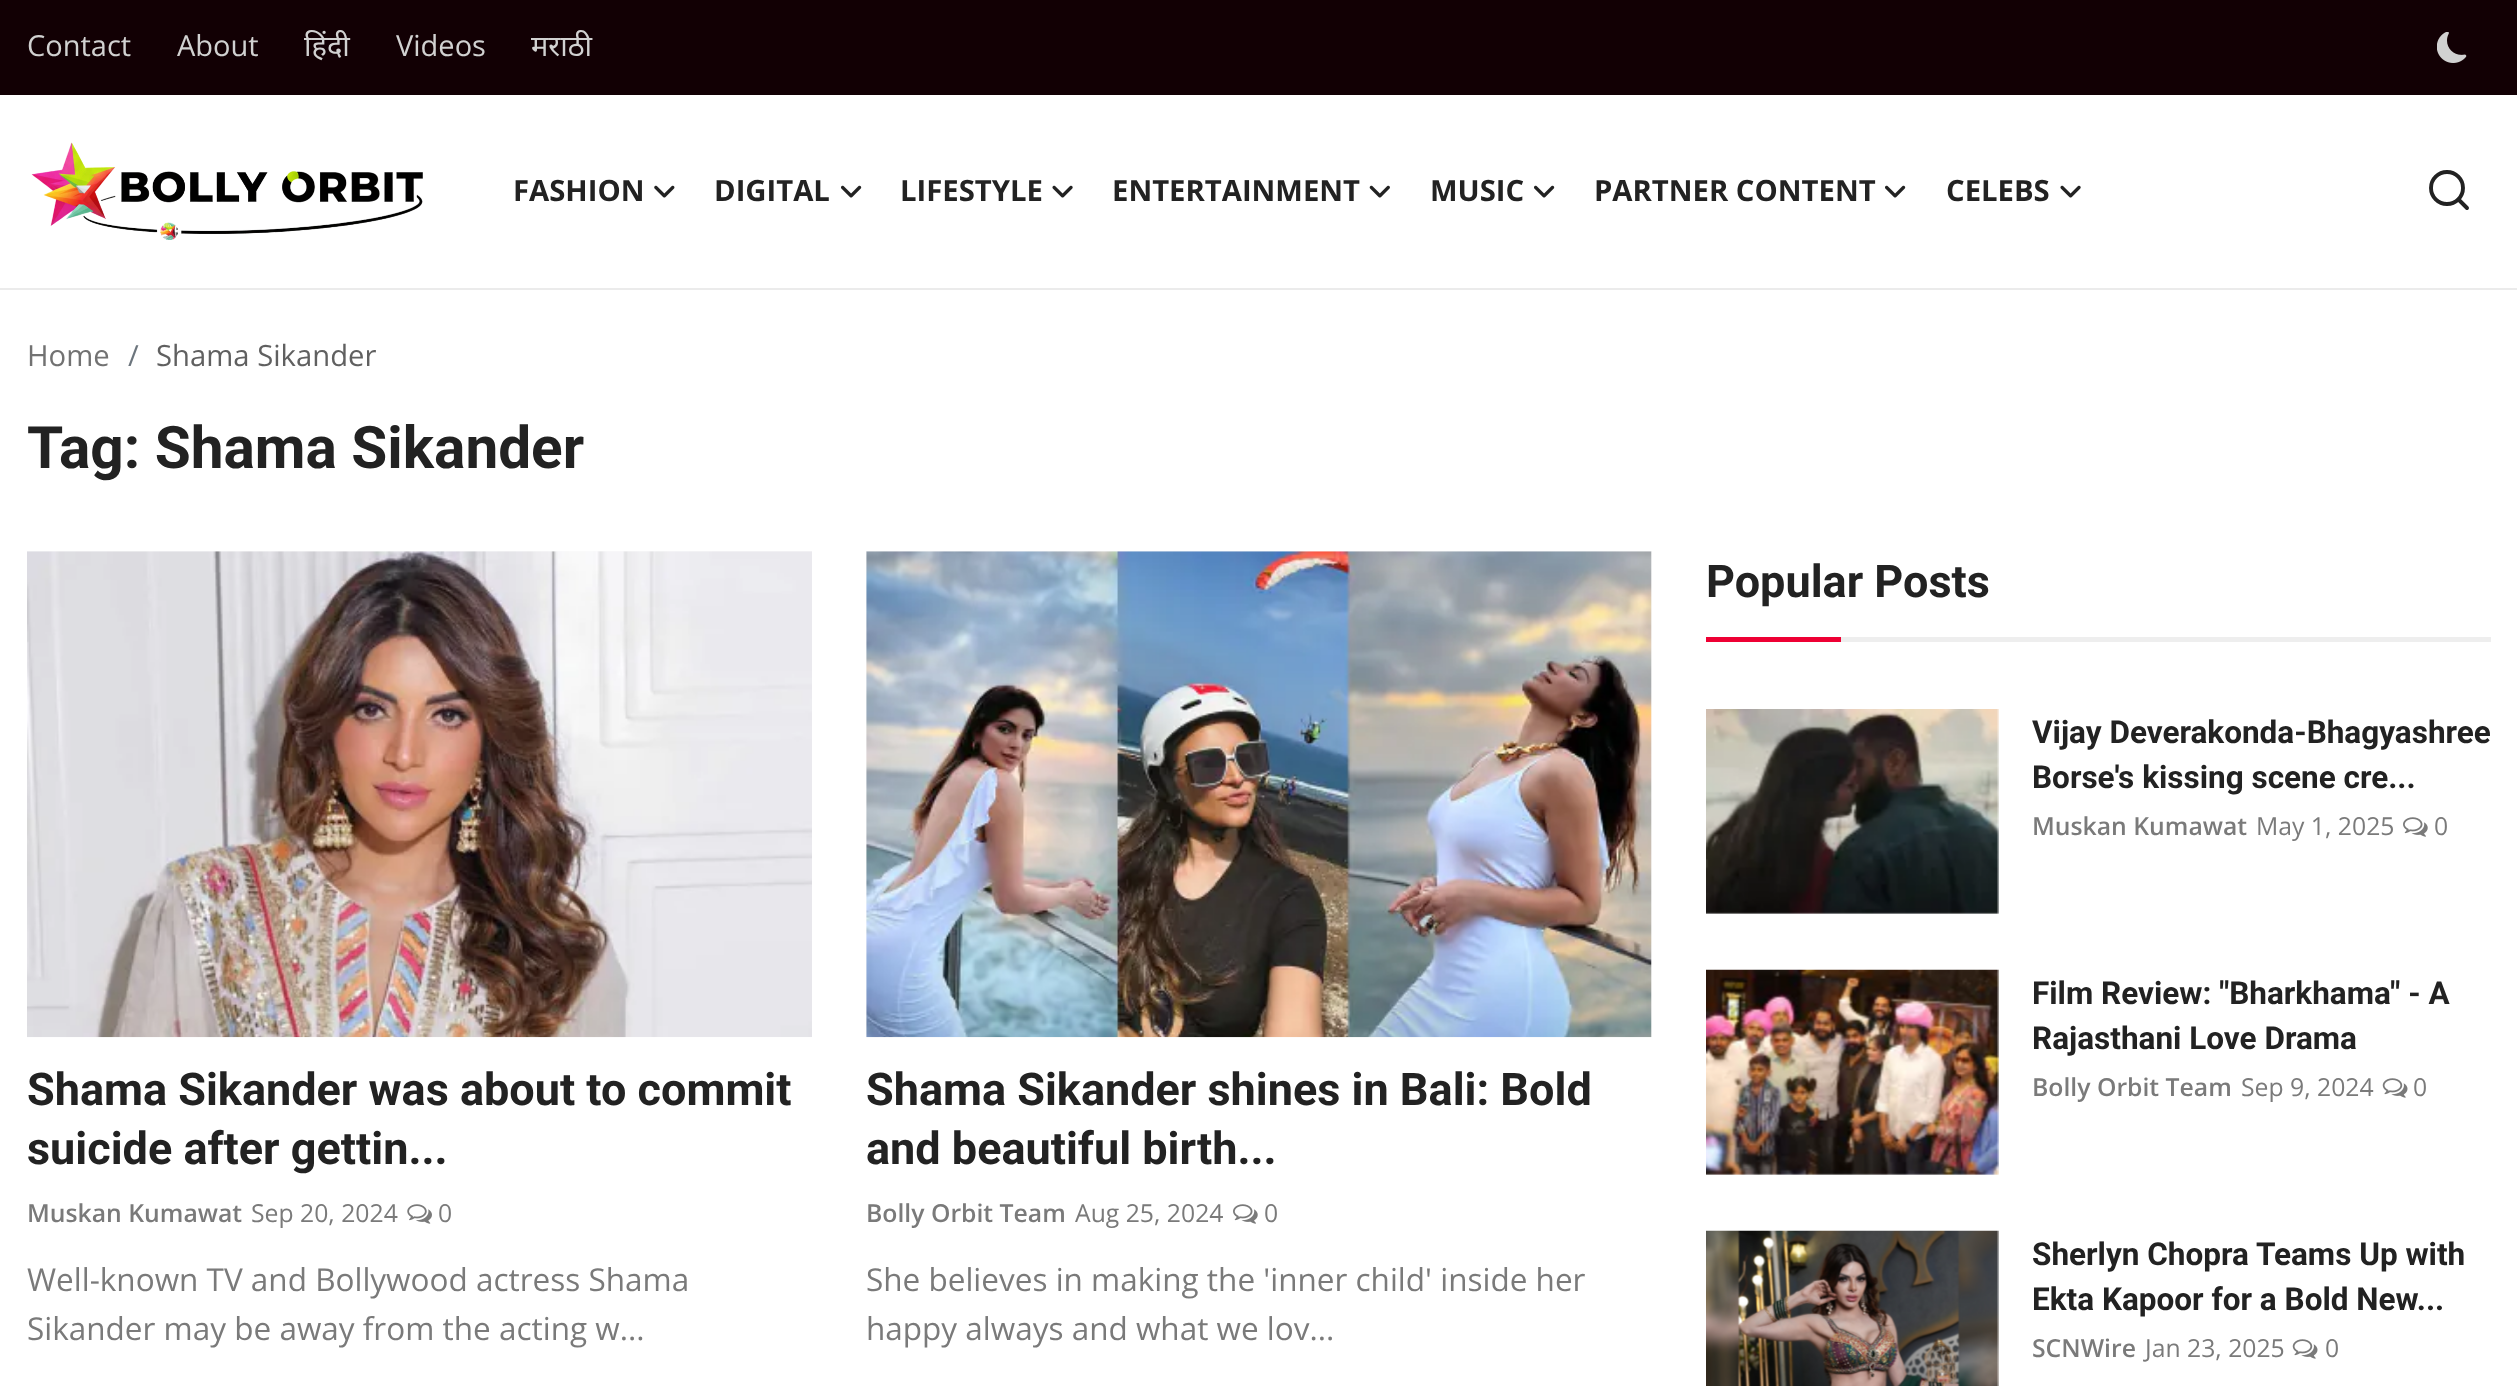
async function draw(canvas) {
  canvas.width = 2517
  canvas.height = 1386
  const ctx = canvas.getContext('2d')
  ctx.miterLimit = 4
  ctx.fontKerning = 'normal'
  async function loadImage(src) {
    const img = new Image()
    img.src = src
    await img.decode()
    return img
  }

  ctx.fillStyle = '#fff'
  ctx.fillRect(0, 0, 2517, 1386)
  ctx.fillStyle = '#120004'
  ctx.fillRect(0, 0, 2517, 95)
  ctx.font = '29px Open Sans'
  ctx.fillStyle = '#d1d1d1'
  ctx.fillText('Contact', 27, 56)
  ctx.fillText('About', 177, 56)
  ctx.font = '29px Noto Sans'
  ctx.fillText('हिंदी', 304, 56)
  ctx.font = '29px Open Sans'
  ctx.fillText('Videos', 396, 56)
  ctx.font = '29px Noto Sans'
  ctx.fillText('मराठी', 531, 56)
  ctx.drawImage(await loadImage('image0.png'), 2437, 32, 30, 31)
  ctx.fillStyle = '#ebebeb'
  ctx.fillRect(0, 288, 2517, 2)
  ctx.drawImage(await loadImage('image1.png'), 31, 142, 392, 98)
  ctx.font = 'bold 29.25px Open Sans'
  ctx.fillStyle = '#222'
  ctx.fillText('FASHION', 513, 201)
  ctx.drawImage(await loadImage('image2.png'), 654, 185, 21, 13)
  ctx.fillText('DIGITAL', 714, 201)
  ctx.drawImage(await loadImage('image3.png'), 841, 185, 21, 13)
  ctx.fillText('LIFESTYLE', 900, 201)
  ctx.drawImage(await loadImage('image4.png'), 1052, 185, 21, 13)
  ctx.fillText('ENTERTAINMENT', 1112, 201)
  ctx.drawImage(await loadImage('image5.png'), 1369, 185, 21, 13)
  ctx.fillText('MUSIC', 1430, 201)
  ctx.drawImage(await loadImage('image3.png'), 1534, 185, 21, 13)
  ctx.fillText('PARTNER CONTENT', 1594, 201)
  ctx.drawImage(await loadImage('image3.png'), 1885, 185, 21, 13)
  ctx.fillText('CELEBS', 1946, 201)
  ctx.drawImage(await loadImage('image4.png'), 2060, 185, 21, 13)
  ctx.beginPath()
  ctx.arc(2447, 188, 16, 0, 2 * Math.PI)
  ctx.strokeStyle = '#222'
  ctx.lineWidth = 3.9
  ctx.stroke()
  ctx.beginPath()
  ctx.moveTo(2467, 208)
  ctx.lineTo(2458.5, 199.5)
  ctx.lineCap = 'round'
  ctx.lineJoin = 'round'
  ctx.stroke()
  ctx.font = '29.25px Open Sans'
  ctx.fillStyle = '#727272'
  ctx.fillText('Home', 27, 366)
  ctx.fillStyle = '#6c757d'
  ctx.fillText('/', 128, 366)
  ctx.fillStyle = '#606060'
  ctx.fillText('Shama Sikander', 156, 366)
  ctx.font = 'bold 58.5px Roboto'
  ctx.fillStyle = '#222'
  ctx.fillText('Tag: Shama Sikander', 27, 468)
  ctx.fillStyle = '#fafafa'
  ctx.fillRect(27, 551, 785, 1)
  ctx.drawImage(await loadImage('image6.png'), 27, 551, 785, 487)
  ctx.font = 'bold 45px Roboto'
  ctx.fillStyle = '#222'
  ctx.fillText('Shama Sikander was about to commit', 27, 1105)
  ctx.fillText('suicide after gettin...', 27, 1164)
  ctx.font = '600 24.75px Open Sans'
  ctx.fillStyle = '#7a7a7a'
  ctx.fillText('Muskan Kumawat', 27, 1222)
  ctx.font = '24.75px Open Sans'
  ctx.fillText('Sep 20, 2024', 251, 1222)
  ctx.drawImage(await loadImage('image7.png'), 407, 1204, 25, 20)
  ctx.fillText('0', 438, 1222)
  ctx.font = '31.5px Open Sans'
  ctx.fillText('Well-known TV and Bollywood actress Shama', 27, 1291)
  ctx.fillText('Sikander may be away from the acting w...', 27, 1340)
  ctx.fillStyle = '#fafafa'
  ctx.fillRect(866, 551, 786, 486)
  ctx.drawImage(await loadImage('image8.png'), 866, 551, 786, 487)
  ctx.font = 'bold 45px Roboto'
  ctx.fillStyle = '#222'
  ctx.fillText('Shama Sikander shines in Bali: Bold', 866, 1105)
  ctx.fillText('and beautiful birth...', 866, 1164)
  ctx.font = '600 24.75px Open Sans'
  ctx.fillStyle = '#7a7a7a'
  ctx.fillText('Bolly Orbit Team', 866, 1222)
  ctx.font = '24.75px Open Sans'
  ctx.fillText('Aug 25, 2024', 1075, 1222)
  ctx.drawImage(await loadImage('image9.png'), 1233, 1204, 25, 20)
  ctx.fillText('0', 1264, 1222)
  ctx.font = '31.5px Open Sans'
  ctx.fillText('She believes in making the \'inner child\' inside her', 866, 1291)
  ctx.fillText('happy always and what we lov...', 866, 1340)
  ctx.fillStyle = '#eee'
  ctx.fillRect(1841, 637, 650, 5)
  ctx.font = 'bold 45px Roboto'
  ctx.fillStyle = '#222'
  ctx.fillText('Popular Posts', 1706, 597)
  ctx.fillStyle = '#ee0034'
  ctx.fillRect(1706, 637, 135, 5)
  ctx.fillStyle = '#fafafa'
  ctx.fillRect(1706, 709, 292, 205)
  ctx.drawImage(await loadImage('image10.png'), 1706, 709, 293, 205)
  ctx.font = 'bold 31.5px Roboto'
  ctx.fillStyle = '#222'
  ctx.fillText('Vijay Deverakonda-Bhagyashree', 2032, 743)
  ctx.fillText('Borse\'s kissing scene cre...', 2032, 788)
  ctx.font = '600 24.75px Open Sans'
  ctx.fillStyle = '#7a7a7a'
  ctx.fillText('Muskan Kumawat', 2032, 835)
  ctx.font = '24.75px Open Sans'
  ctx.fillText('May 1, 2025', 2256, 835)
  ctx.drawImage(await loadImage('image9.png'), 2403, 817, 25, 20)
  ctx.fillText('0', 2434, 835)
  ctx.fillStyle = '#fafafa'
  ctx.fillRect(1706, 970, 292, 205)
  ctx.drawImage(await loadImage('image11.png'), 1706, 969, 293, 206)
  ctx.font = 'bold 31.5px Roboto'
  ctx.fillStyle = '#222'
  ctx.fillText('Film Review: "Bharkhama" - A', 2032, 1004)
  ctx.fillText('Rajasthani Love Drama', 2032, 1049)
  ctx.font = '600 24.75px Open Sans'
  ctx.fillStyle = '#7a7a7a'
  ctx.fillText('Bolly Orbit Team', 2032, 1096)
  ctx.font = '24.75px Open Sans'
  ctx.fillText('Sep 9, 2024', 2241, 1096)
  ctx.drawImage(await loadImage('image12.png'), 2382, 1078, 26, 20)
  ctx.fillText('0', 2413, 1096)
  ctx.drawImage(await loadImage('image13.png'), 1706, 1230, 293, 156)
  ctx.font = 'bold 31.5px Roboto'
  ctx.fillStyle = '#222'
  ctx.fillText('Sherlyn Chopra Teams Up with', 2032, 1265)
  ctx.fillText('Ekta Kapoor for a Bold New...', 2032, 1310)
  ctx.font = '600 24.75px Open Sans'
  ctx.fillStyle = '#7a7a7a'
  ctx.fillText('SCNWire', 2032, 1357)
  ctx.font = '24.75px Open Sans'
  ctx.fillText('Jan 23, 2025', 2145, 1357)
  ctx.drawImage(await loadImage('image12.png'), 2292, 1339, 26, 20)
  ctx.fillText('0', 2325, 1357)
}

draw(document.querySelector('canvas'))
